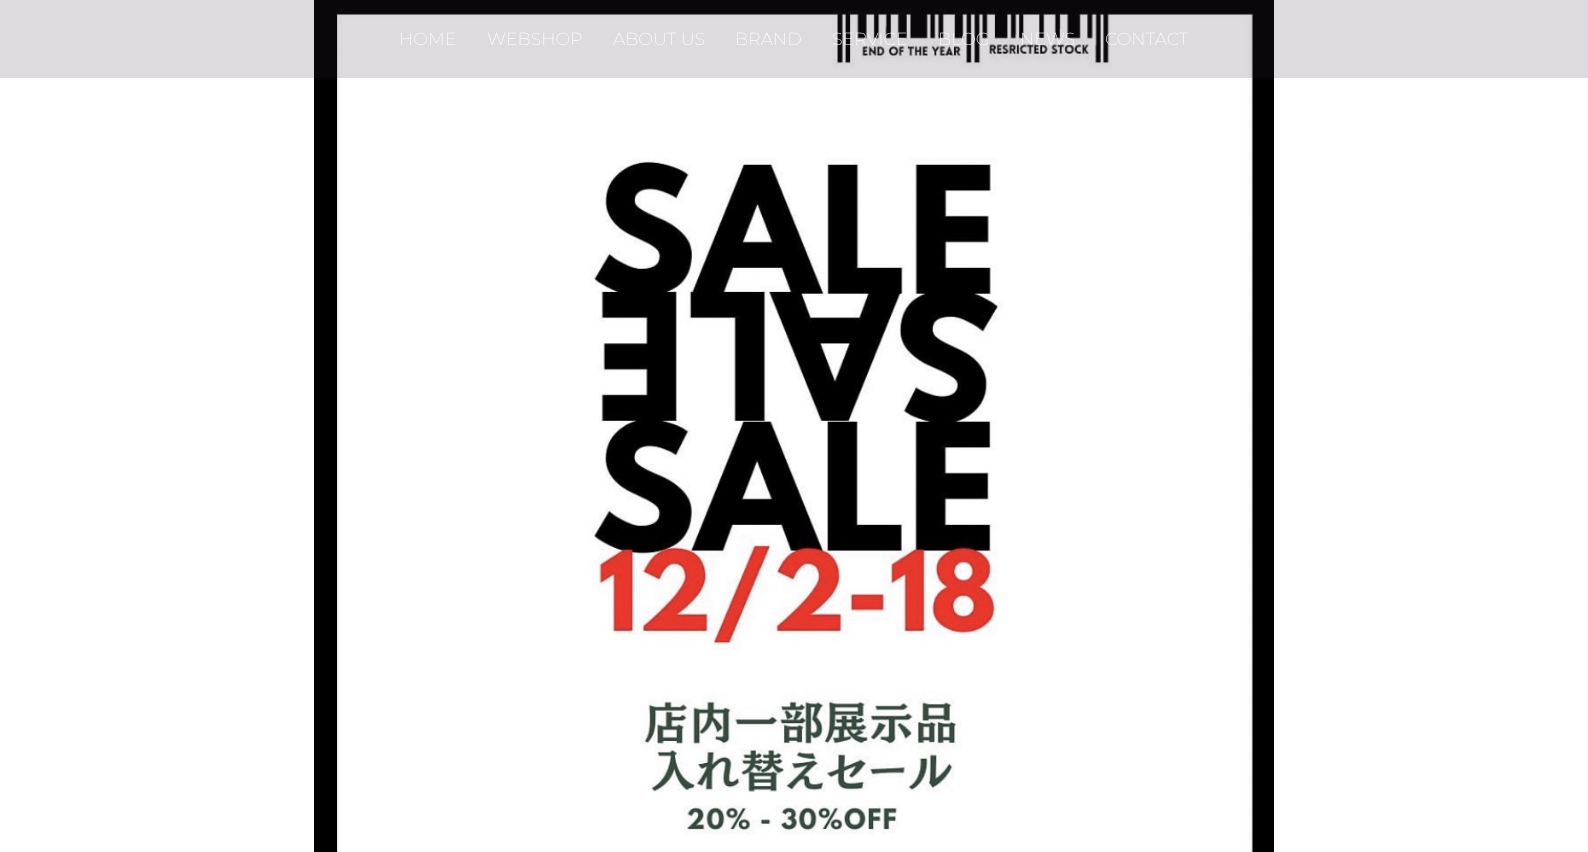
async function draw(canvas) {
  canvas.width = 1588
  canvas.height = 852
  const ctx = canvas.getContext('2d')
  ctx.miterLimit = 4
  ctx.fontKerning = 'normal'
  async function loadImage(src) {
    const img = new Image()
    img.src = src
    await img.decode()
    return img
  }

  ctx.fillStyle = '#fff'
  ctx.fillRect(0, 0, 1588, 852)
  ctx.drawImage(await loadImage('image0.png'), 314, 0, 960, 852)
  ctx.fillStyle = '#332b492b'
  ctx.fillRect(0, 0, 1588, 78)
  ctx.font = '200 17.5px Montserrat'
  ctx.fillStyle = '#fff'
  ctx.fillText('HOME', 399, 45)
  ctx.fillText('WEBSHOP', 487, 45)
  ctx.fillText('ABOUT US', 613, 45)
  ctx.fillText('BRAND', 735, 45)
  ctx.fillText('SERVICE', 832, 45)
  ctx.fillText('BLOG', 938, 45)
  ctx.fillText('NEWS', 1020, 45)
  ctx.fillText('CONTACT', 1105, 45)
}

draw(document.querySelector('canvas'))
